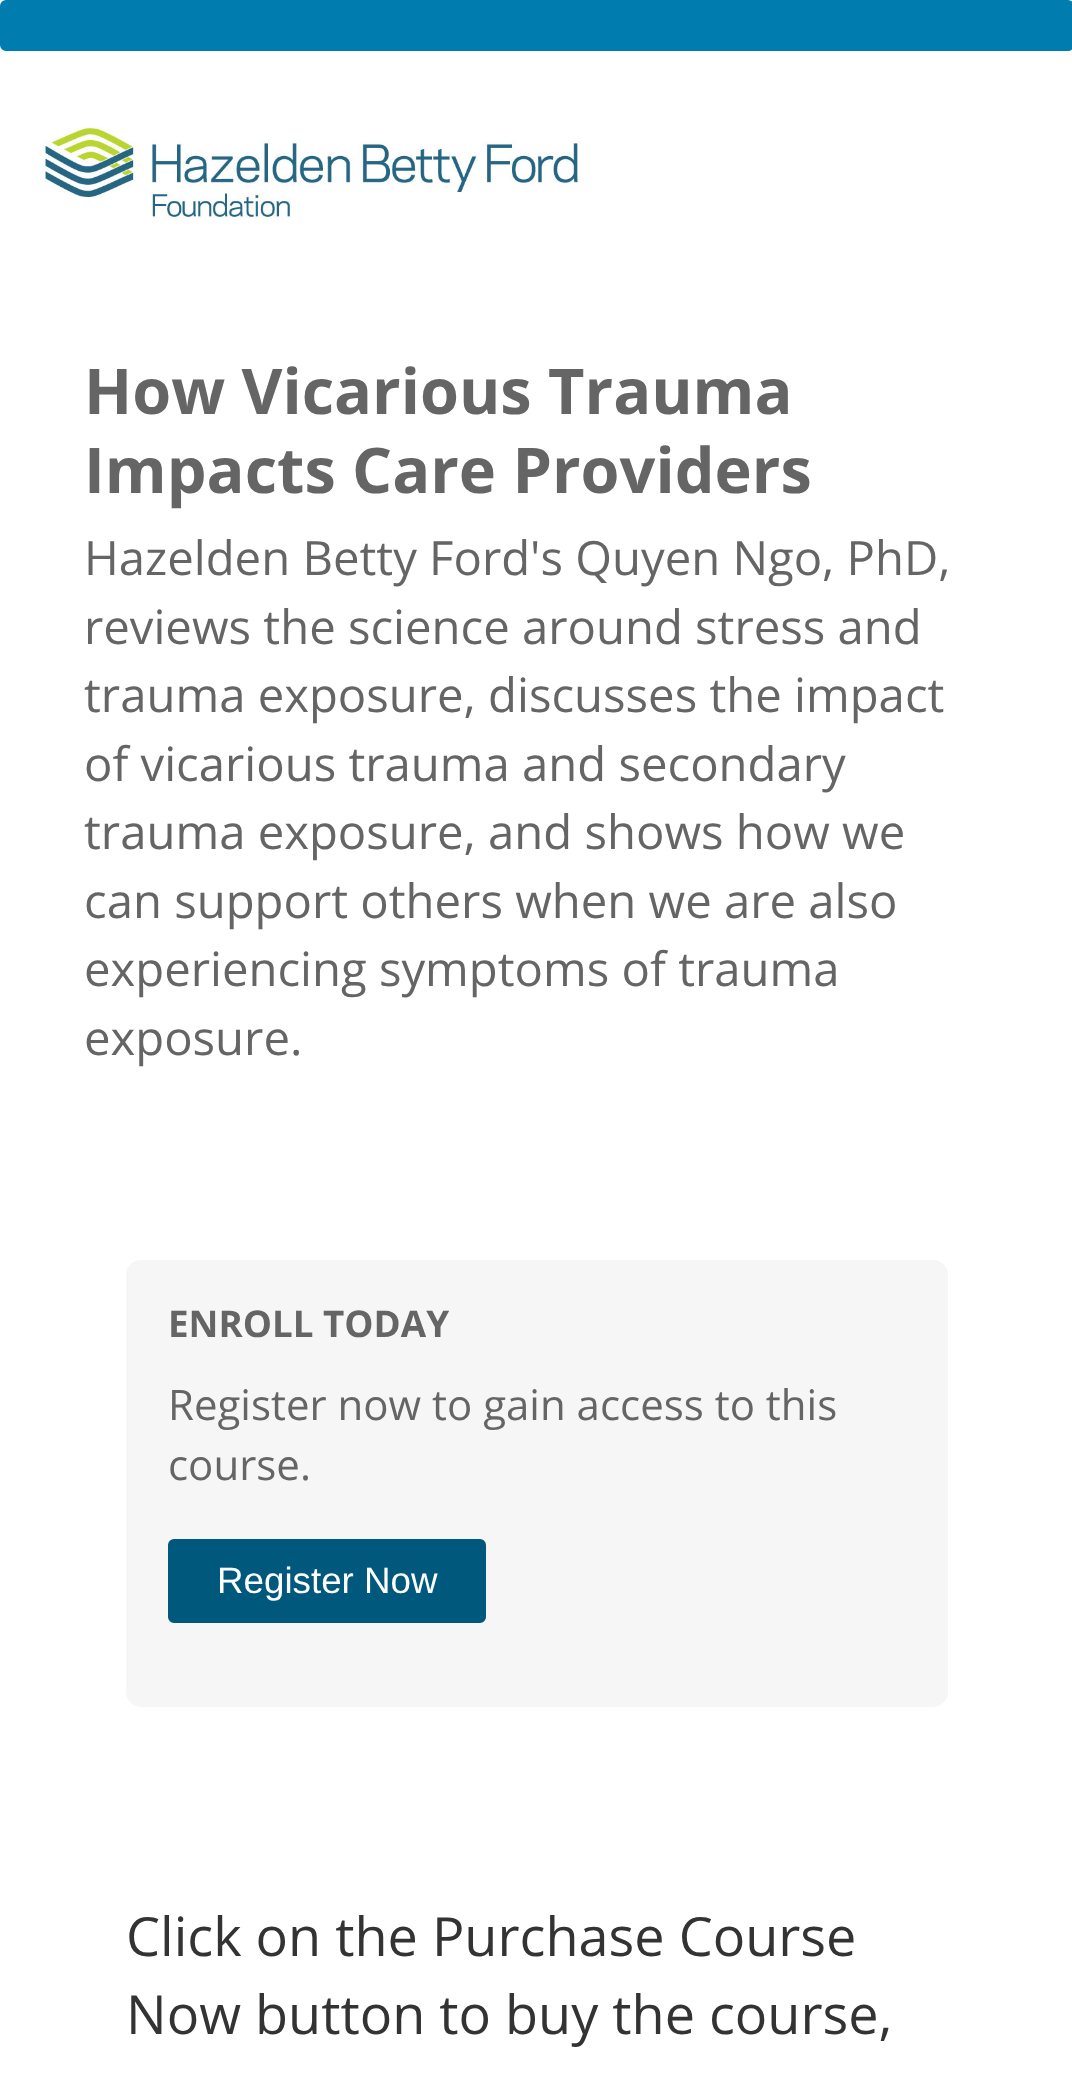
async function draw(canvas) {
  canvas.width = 1072
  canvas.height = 2095
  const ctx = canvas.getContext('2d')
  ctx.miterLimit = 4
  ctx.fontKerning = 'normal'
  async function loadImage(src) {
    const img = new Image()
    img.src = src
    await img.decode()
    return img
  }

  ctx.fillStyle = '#fff'
  ctx.fillRect(0, 0, 1072, 2095)
  ctx.drawImage(await loadImage('image0.png'), 42, 126, 539, 92)
  ctx.font = 'bold 63px Open Sans'
  ctx.fillStyle = '#656565'
  ctx.fillText('How Vicarious Trauma', 84, 414)
  ctx.fillText('Impacts Care Providers', 84, 493)
  ctx.font = '47.25px Open Sans'
  ctx.fillText('Hazelden Betty Ford\'s Quyen Ngo, PhD,', 84, 575)
  ctx.fillText('reviews the science around stress and', 84, 644)
  ctx.fillText('trauma exposure, discusses the impact', 84, 712)
  ctx.fillText('of vicarious trauma and secondary', 84, 781)
  ctx.fillText('trauma exposure, and shows how we', 84, 849)
  ctx.fillText('can support others when we are also', 84, 918)
  ctx.fillText('experiencing symptoms of trauma', 84, 986)
  ctx.fillText('exposure.', 84, 1055)
  ctx.fillStyle = '#007caf'
  ctx.beginPath()
  ctx.roundRect(1.5, 1.5, 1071, 48, 4.5)
  ctx.fill()
  ctx.strokeStyle = '#007caf'
  ctx.lineWidth = 3
  ctx.stroke()
  ctx.fillStyle = '#f6f6f6'
  ctx.beginPath()
  ctx.roundRect(126, 1260, 822, 447, 15)
  ctx.fill()
  ctx.font = 'bold 36.75px Open Sans'
  ctx.fillStyle = '#656565'
  ctx.fillText('ENROLL TODAY', 168, 1337)
  ctx.font = '42px Open Sans'
  ctx.fillText('Register now to gain access to this', 168, 1420)
  ctx.fillText('course.', 168, 1480)
  ctx.fillStyle = '#00587c'
  ctx.beginPath()
  ctx.roundRect(169.5, 1540.5, 315, 81, 4.5)
  ctx.fill()
  ctx.strokeStyle = '#00587c'
  ctx.stroke()
  ctx.font = '36.75px Liberation Sans'
  ctx.fillStyle = '#fff'
  ctx.fillText('Register Now', 217, 1593)
  ctx.font = '54px Open Sans'
  ctx.fillStyle = '#333'
  ctx.fillText('Click on the Purchase Course', 126, 1956)
  ctx.fillText('Now button to buy the course,', 126, 2034)
}

draw(document.querySelector('canvas'))
